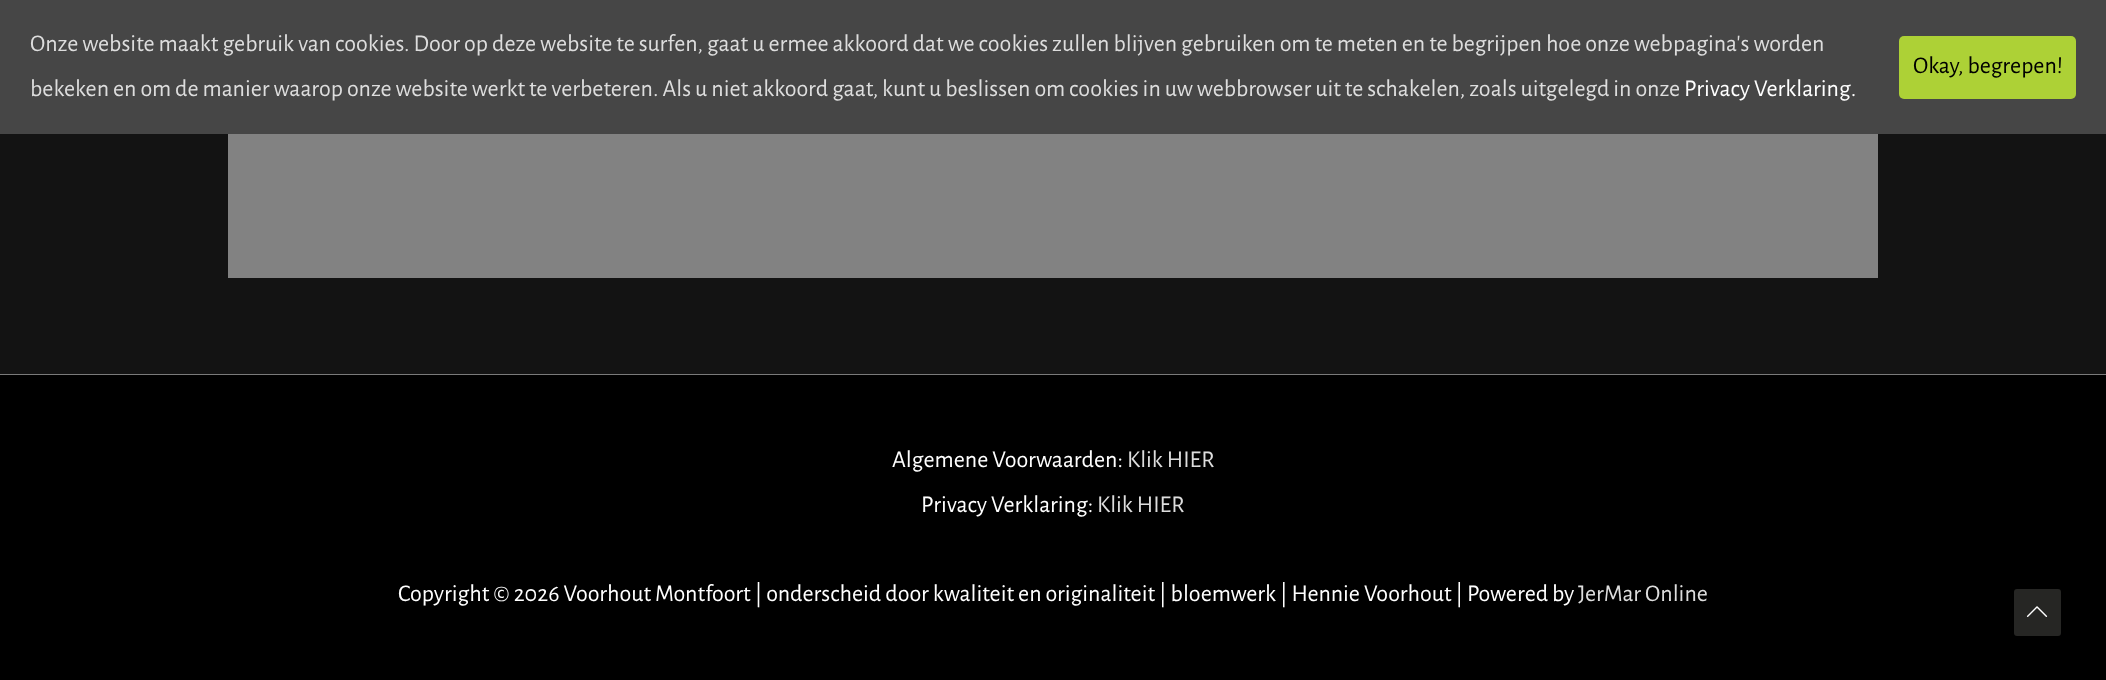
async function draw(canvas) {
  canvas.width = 2106
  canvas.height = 680
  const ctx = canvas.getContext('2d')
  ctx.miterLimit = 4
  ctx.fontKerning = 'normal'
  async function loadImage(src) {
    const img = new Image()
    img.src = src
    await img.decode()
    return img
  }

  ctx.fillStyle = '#131313'
  ctx.fillRect(0, 0, 2106, 680)
  ctx.fillStyle = '#464646'
  ctx.fillRect(0, 0, 2106, 134)
  ctx.font = '24px Alegreya Sans'
  ctx.fillStyle = '#ddd'
  ctx.fillText('Onze website maakt gebruik van cookies. Door op deze website te surfen, gaat u ermee akkoord dat we cookies zullen blijven gebruiken om te meten en te begrijpen hoe onze webpagina\'s worden', 30, 51)
  ctx.fillText('bekeken en om de manier waarop onze website werkt te verbeteren. Als u niet akkoord gaat, kunt u beslissen om cookies in uw webbrowser uit te schakelen, zoals uitgelegd in onze', 30, 96)
  ctx.fillStyle = '#fff'
  ctx.fillText('Privacy Verklaring.', 1684, 96)
  ctx.fillStyle = '#add136'
  ctx.beginPath()
  ctx.roundRect(1899, 36, 177, 63, 5)
  ctx.fill()
  ctx.fillStyle = '#000'
  ctx.fillText('Okay, begrepen!', 1913, 73)
  ctx.fillStyle = '#828282'
  ctx.fillRect(228, 134, 1650, 144)
  ctx.fillStyle = '#7a7a7a'
  ctx.fillRect(0, 374, 2106, 1)
  ctx.fillStyle = '#000'
  ctx.fillRect(0, 375, 2106, 305)
  ctx.fillStyle = '#fff'
  ctx.fillText('Algemene Voorwaarden:', 892, 467)
  ctx.fillStyle = '#ddd'
  ctx.fillText('Klik HIER', 1127, 467)
  ctx.fillStyle = '#fff'
  ctx.fillText('Privacy Verklaring:', 921, 512)
  ctx.fillStyle = '#ddd'
  ctx.fillText('Klik HIER', 1097, 512)
  ctx.fillStyle = '#fff'
  ctx.fillText('Copyright © 2026 Voorhout Montfoort | onderscheid door kwaliteit en originaliteit | bloemwerk | Hennie Voorhout | Powered by', 398, 601)
  ctx.fillStyle = '#ddd'
  ctx.fillText('JerMar Online', 1578, 601)
  ctx.fillStyle = '#262624'
  ctx.beginPath()
  ctx.moveTo(2058, 636)
  ctx.lineTo(2017, 636)
  ctx.bezierCurveTo(2015, 636, 2014, 635, 2014, 633)
  ctx.lineTo(2014, 592)
  ctx.bezierCurveTo(2014, 590, 2015, 589, 2017, 589)
  ctx.lineTo(2058, 589)
  ctx.bezierCurveTo(2060, 589, 2061, 590, 2061, 592)
  ctx.lineTo(2061, 633)
  ctx.bezierCurveTo(2061, 635, 2060, 636, 2058, 636)
  ctx.closePath()
  ctx.fill()
  ctx.drawImage(await loadImage('image0.png'), 2026, 606, 22, 11)
}

draw(document.querySelector('canvas'))
